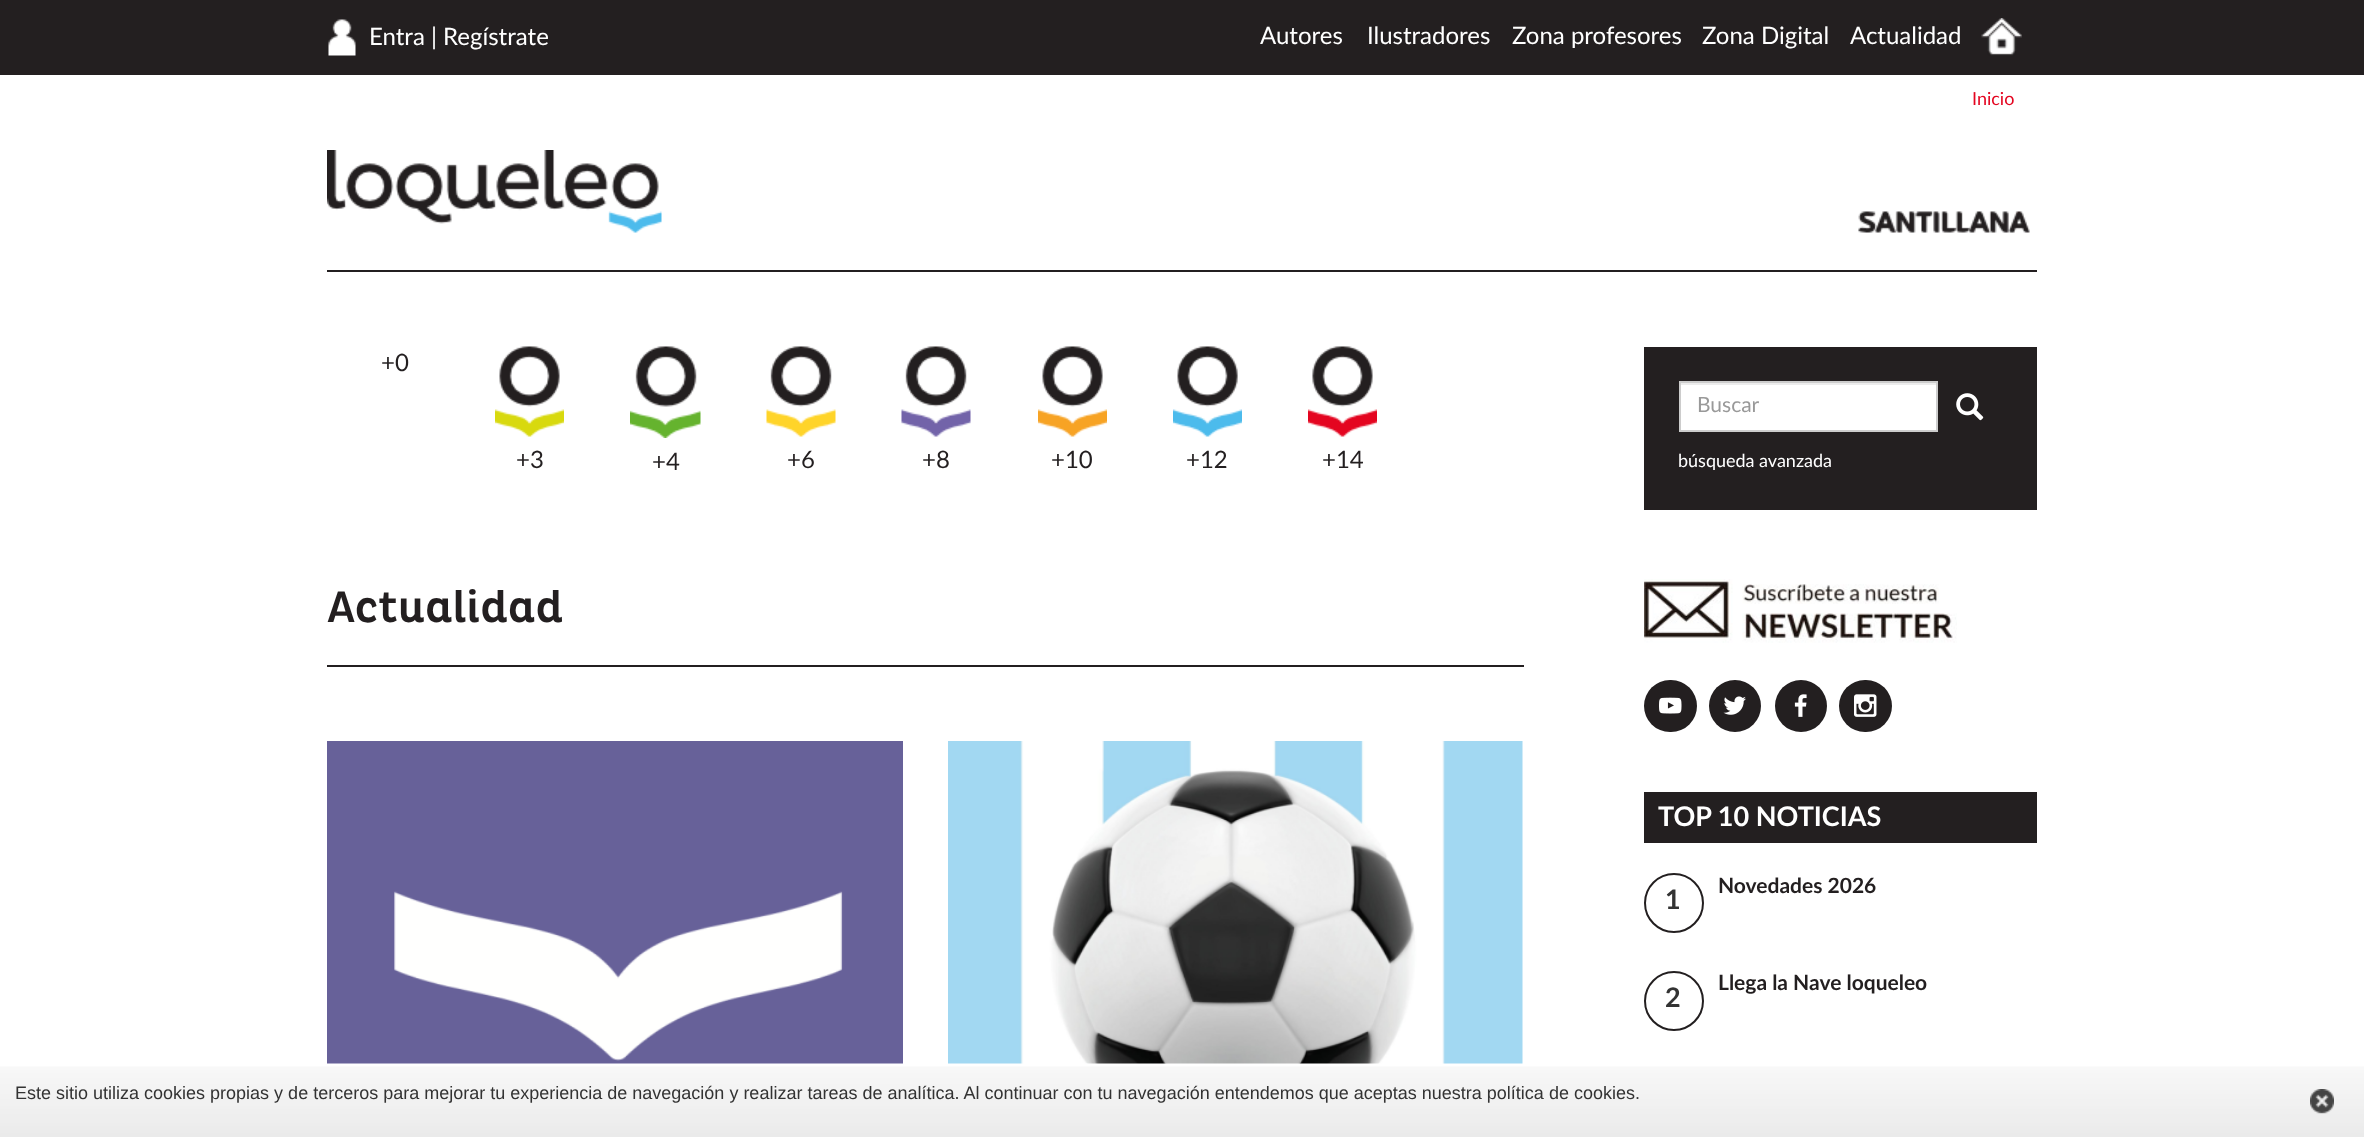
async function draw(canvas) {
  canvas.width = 2364
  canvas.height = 1137
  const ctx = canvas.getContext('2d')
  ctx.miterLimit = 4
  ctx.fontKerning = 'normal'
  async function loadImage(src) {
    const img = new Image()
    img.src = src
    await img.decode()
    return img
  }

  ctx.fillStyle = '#fff'
  ctx.fillRect(0, 0, 2364, 1137)
  ctx.fillStyle = '#231f20'
  ctx.fillRect(0, 0, 2364, 75)
  ctx.drawImage(await loadImage('image0.png'), 328, 19, 28, 37)
  ctx.font = '24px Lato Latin'
  ctx.fillStyle = '#fff'
  ctx.fillText('Entra | Regístrate', 369, 45)
  ctx.fillText('Autores', 1260, 44)
  ctx.fillText('Ilustradores', 1367, 44)
  ctx.fillText('Zona profesores', 1512, 44)
  ctx.fillText('Zona Digital', 1702, 44)
  ctx.fillText('Actualidad', 1850, 44)
  ctx.drawImage(await loadImage('image1.png'), 1981, 18, 41, 38)
  ctx.font = '18px Lato Latin'
  ctx.fillStyle = '#e40520'
  ctx.fillText('Inicio', 1972, 105)
  ctx.fillStyle = '#231f20'
  ctx.fillRect(327, 270, 1710, 2)
  ctx.drawImage(await loadImage('image2.png'), 327, 150, 335, 83)
  ctx.drawImage(await loadImage('image3.png'), 1858, 211, 172, 22)
  ctx.font = '24px Lato Latin'
  ctx.fillText('+0', 381, 371)
  ctx.drawImage(await loadImage('image4.png'), 495, 346, 69, 91)
  ctx.fillText('+3', 516, 468)
  ctx.drawImage(await loadImage('image5.png'), 630, 346, 71, 92)
  ctx.fillText('+4', 652, 470)
  ctx.drawImage(await loadImage('image6.png'), 766, 346, 70, 91)
  ctx.fillText('+6', 787, 468)
  ctx.drawImage(await loadImage('image7.png'), 901, 346, 70, 91)
  ctx.fillText('+8', 922, 468)
  ctx.drawImage(await loadImage('image8.png'), 1038, 346, 69, 91)
  ctx.fillText('+10', 1051, 468)
  ctx.drawImage(await loadImage('image9.png'), 1173, 346, 69, 91)
  ctx.fillText('+12', 1186, 468)
  ctx.drawImage(await loadImage('image10.png'), 1308, 346, 69, 91)
  ctx.fillText('+14', 1322, 468)
  ctx.fillRect(1644, 347, 393, 163)
  ctx.fillStyle = '#fff'
  ctx.fillRect(1681, 385, 255, 45)
  ctx.fillStyle = '#ececec'
  ctx.fillRect(1680, 383, 257, 2)
  ctx.strokeStyle = '#ccc'
  ctx.lineWidth = 2
  ctx.strokeRect(1680, 382, 257, 49)
  ctx.font = '21px Lato Latin'
  ctx.fillStyle = '#999'
  ctx.fillText('Buscar', 1697, 412)
  ctx.drawImage(await loadImage('image11.png'), 1956, 393, 28, 28)
  ctx.font = '18px Lato Latin'
  ctx.fillStyle = '#fff'
  ctx.fillText('búsqueda avanzada', 1678, 467)
  ctx.fillStyle = '#231f20'
  ctx.fillRect(327, 665, 1197, 2)
  ctx.font = '500 45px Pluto'
  ctx.fillText('Actualidad', 327, 622)
  ctx.drawImage(await loadImage('image12.png'), 327, 741, 576, 323)
  ctx.drawImage(await loadImage('image13.png'), 948, 741, 575, 323)
  ctx.drawImage(await loadImage('image14.png'), 1644, 579, 313, 64)
  ctx.beginPath()
  ctx.roundRect(1644, 680, 53, 52, 26)
  ctx.fill()
  ctx.drawImage(await loadImage('image15.png'), 1659, 697, 23, 17)
  ctx.beginPath()
  ctx.arc(1735, 706, 26, 0, 2 * Math.PI)
  ctx.fill()
  ctx.drawImage(await loadImage('image16.png'), 1723, 696, 23, 19)
  ctx.beginPath()
  ctx.arc(1801, 706, 26, 0, 2 * Math.PI)
  ctx.fill()
  ctx.drawImage(await loadImage('image17.png'), 1794, 694, 13, 23)
  ctx.beginPath()
  ctx.roundRect(1839, 680, 53, 52, 26)
  ctx.fill()
  ctx.drawImage(await loadImage('image18.png'), 1854, 694, 23, 23)
  ctx.fillRect(1644, 792, 393, 51)
  ctx.font = 'bold 27px Lato Latin'
  ctx.fillStyle = '#fff'
  ctx.fillText('TOP 10 NOTICIAS', 1658, 826)
  ctx.font = 'bold 21px Lato Latin'
  ctx.fillStyle = '#231f20'
  ctx.fillText('Novedades 2026', 1718, 893)
  ctx.beginPath()
  ctx.arc(1674, 903, 29, 0, 2 * Math.PI)
  ctx.strokeStyle = '#231f20'
  ctx.stroke()
  ctx.font = 'bold 27px Lato Latin'
  ctx.fillStyle = '#333'
  ctx.fillText('1', 1665, 909)
  ctx.font = 'bold 21px Lato Latin'
  ctx.fillStyle = '#231f20'
  ctx.fillText('Llega la Nave loqueleo', 1718, 990)
  ctx.beginPath()
  ctx.arc(1674, 1001, 29, 0, 2 * Math.PI)
  ctx.stroke()
  ctx.font = 'bold 27px Lato Latin'
  ctx.fillStyle = '#333'
  ctx.fillText('2', 1665, 1007)
  ctx.drawImage(await loadImage('image19.png'), 0, 1066, 2364, 71)
  ctx.font = '18px Liberation Sans'
  ctx.fillText('Este sitio utiliza cookies propias y de terceros para mejorar tu experiencia de navegación y realizar tareas de analítica. Al continuar con tu navegación entendemos que aceptas nuestra política de cookies.', 15, 1099)
  ctx.drawImage(await loadImage('image20.png'), 2310, 1089, 24, 25)
}

draw(document.querySelector('canvas'))
